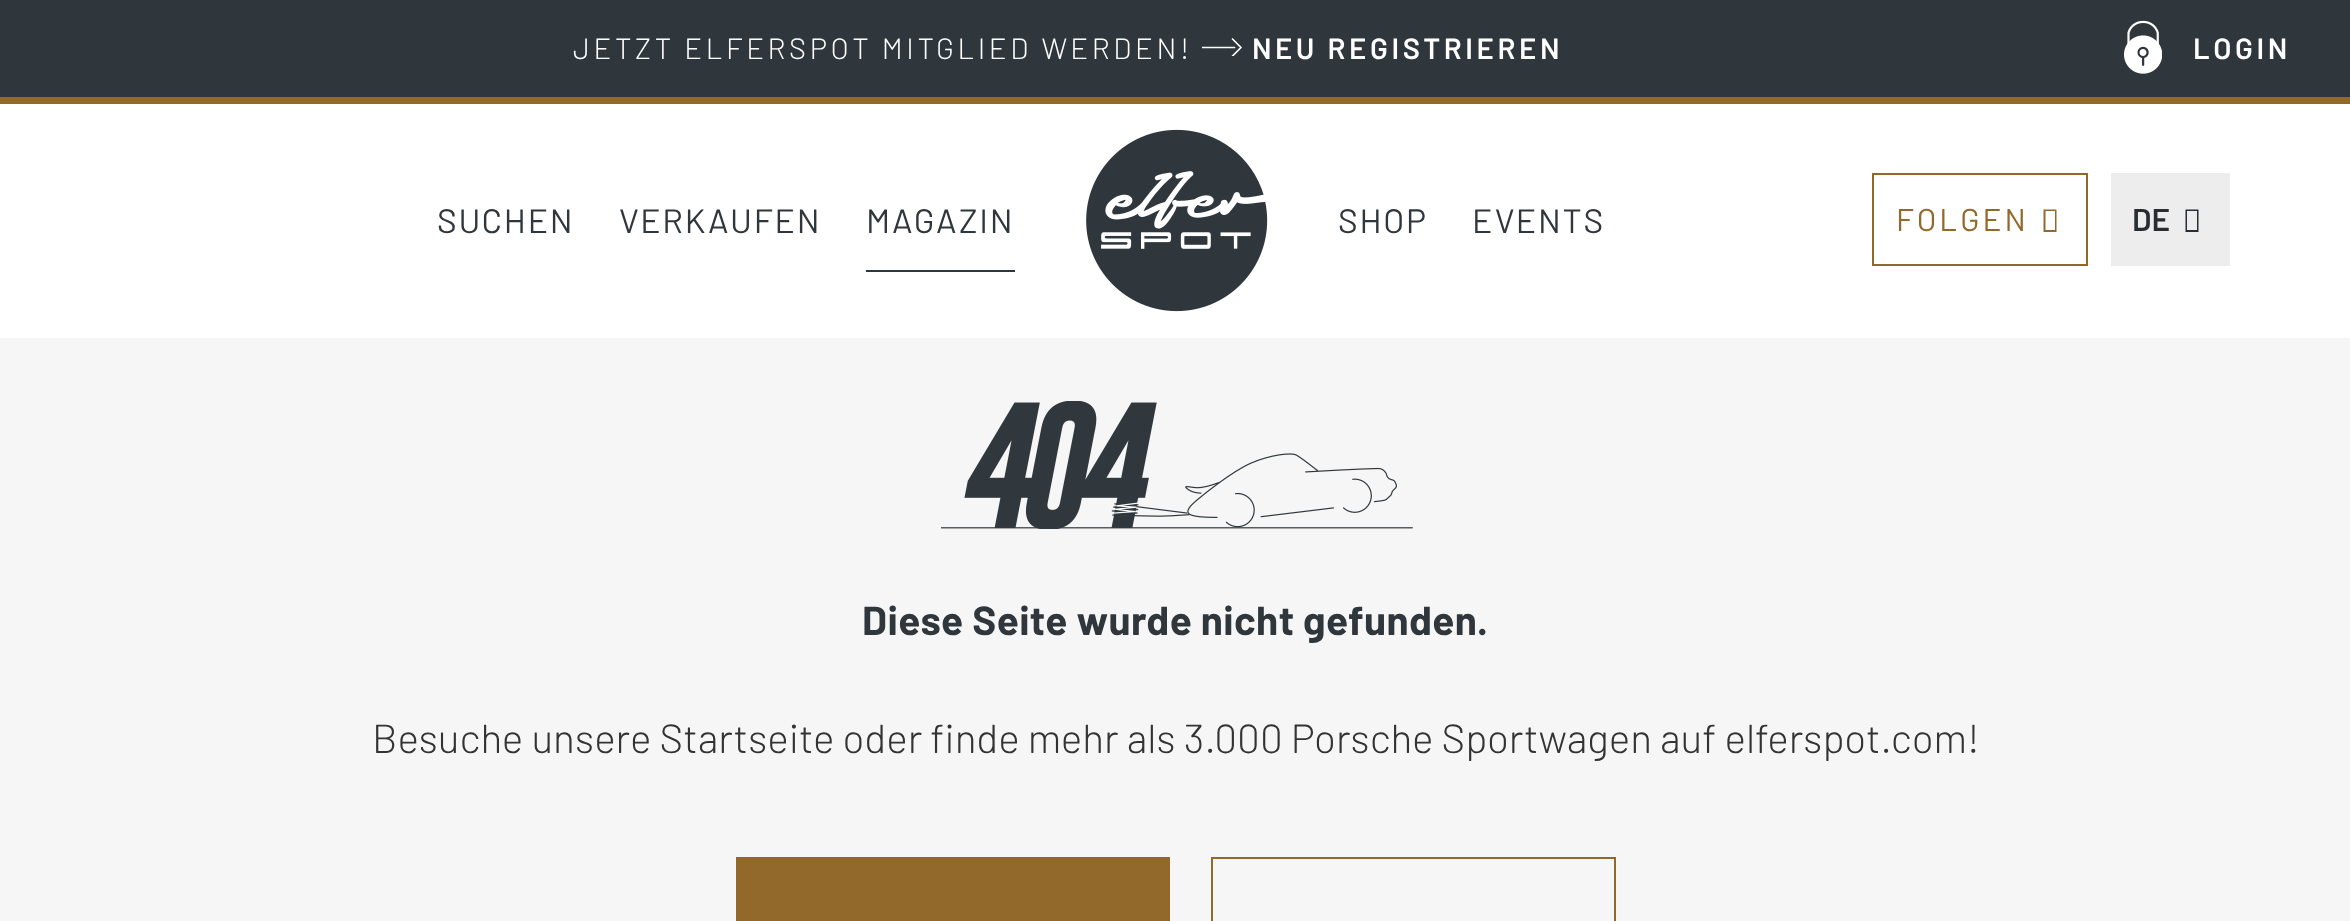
async function draw(canvas) {
  canvas.width = 2350
  canvas.height = 921
  const ctx = canvas.getContext('2d')
  ctx.miterLimit = 4
  ctx.fontKerning = 'normal'
  async function loadImage(src) {
    const img = new Image()
    img.src = src
    await img.decode()
    return img
  }

  ctx.fillStyle = '#fff'
  ctx.fillRect(0, 0, 2350, 921)
  ctx.fillStyle = '#2f373d'
  ctx.fillRect(0, 0, 2350, 97)
  ctx.fillStyle = '#92682b'
  ctx.fillRect(0, 97, 2350, 7)
  ctx.letterSpacing = '3.6px'
  ctx.font = '300 29.25px Barlow'
  ctx.fillStyle = '#fff'
  ctx.fillText('JETZT ELFERSPOT MITGLIED WERDEN!', 573, 59)
  ctx.save()
  ctx.beginPath()
  ctx.rect(1202, 38, 40, 18)
  ctx.clip()
  ctx.beginPath()
  ctx.moveTo(1232.5, 39)
  ctx.lineTo(1241, 47.5)
  ctx.lineTo(1232.5, 56)
  ctx.moveTo(1234.5, 47.5)
  ctx.lineTo(1202.5, 47.5)
  ctx.strokeStyle = '#fff'
  ctx.lineWidth = 1.7
  ctx.lineCap = 'round'
  ctx.lineJoin = 'round'
  ctx.stroke()
  ctx.restore()
  ctx.font = '600 29.25px Barlow'
  ctx.fillText('NEU REGISTRIEREN', 1252, 59)
  ctx.drawImage(await loadImage('image0.png'), 2124, 20, 38, 54)
  ctx.fillText('LOGIN', 2193, 59)
  ctx.letterSpacing = '1.75px'
  ctx.font = '33.75px Barlow'
  ctx.fillStyle = '#2f373d'
  ctx.fillText('SUCHEN', 437, 233)
  ctx.fillText('VERKAUFEN', 619, 233)
  ctx.fillRect(866, 270, 149, 2)
  ctx.fillText('MAGAZIN', 866, 233)
  ctx.fillText('SHOP', 1338, 233)
  ctx.fillText('EVENTS', 1472, 233)
  ctx.drawImage(await loadImage('image1.png'), 1086, 129, 182, 183)
  ctx.strokeStyle = '#92682b'
  ctx.lineWidth = 2
  ctx.strokeRect(1873, 174, 214, 91)
  ctx.letterSpacing = '3px'
  ctx.font = '31.5px Barlow'
  ctx.fillStyle = '#92682b'
  ctx.fillText('FOLGEN', 1896, 231)
  ctx.beginPath()
  ctx.moveTo(2043.5, 232)
  ctx.lineTo(2043.5, 209.5)
  ctx.lineTo(2056.5, 209.5)
  ctx.lineTo(2056.5, 232)
  ctx.closePath()
  ctx.moveTo(2045.5, 230)
  ctx.lineTo(2055, 230)
  ctx.lineTo(2055, 211)
  ctx.lineTo(2045.5, 211)
  ctx.closePath()
  ctx.fill()
  ctx.fillStyle = '#ededed'
  ctx.fillRect(2111, 173, 119, 93)
  ctx.letterSpacing = '0px'
  ctx.font = '600 31.5px Barlow'
  ctx.fillStyle = '#272d31'
  ctx.fillText('DE', 2132, 231)
  ctx.beginPath()
  ctx.moveTo(2185.5, 232)
  ctx.lineTo(2185.5, 209.5)
  ctx.lineTo(2198.5, 209.5)
  ctx.lineTo(2198.5, 232)
  ctx.closePath()
  ctx.moveTo(2187, 230)
  ctx.lineTo(2197, 230)
  ctx.lineTo(2197, 211)
  ctx.lineTo(2187, 211)
  ctx.closePath()
  ctx.fill()
  ctx.fillStyle = '#f6f6f6'
  ctx.fillRect(0, 338, 2350, 583)
  ctx.drawImage(await loadImage('image2.png'), 941, 401, 472, 128)
  ctx.letterSpacing = '0.4px'
  ctx.font = 'bold 40.5px Barlow'
  ctx.fillStyle = '#2f373d'
  ctx.fillText('Diese Seite wurde nicht gefunden.', 862, 635)
  ctx.letterSpacing = '0px'
  ctx.font = '300 40.5px Barlow'
  ctx.fillStyle = '#333'
  ctx.fillText('Besuche unsere Startseite oder finde mehr als 3.000 Porsche Sportwagen auf elferspot.com!', 372, 753)
  ctx.fillStyle = '#92682b'
  ctx.fillRect(736, 857, 434, 64)
  ctx.strokeRect(1212, 858, 403, 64)
}

draw(document.querySelector('canvas'))
